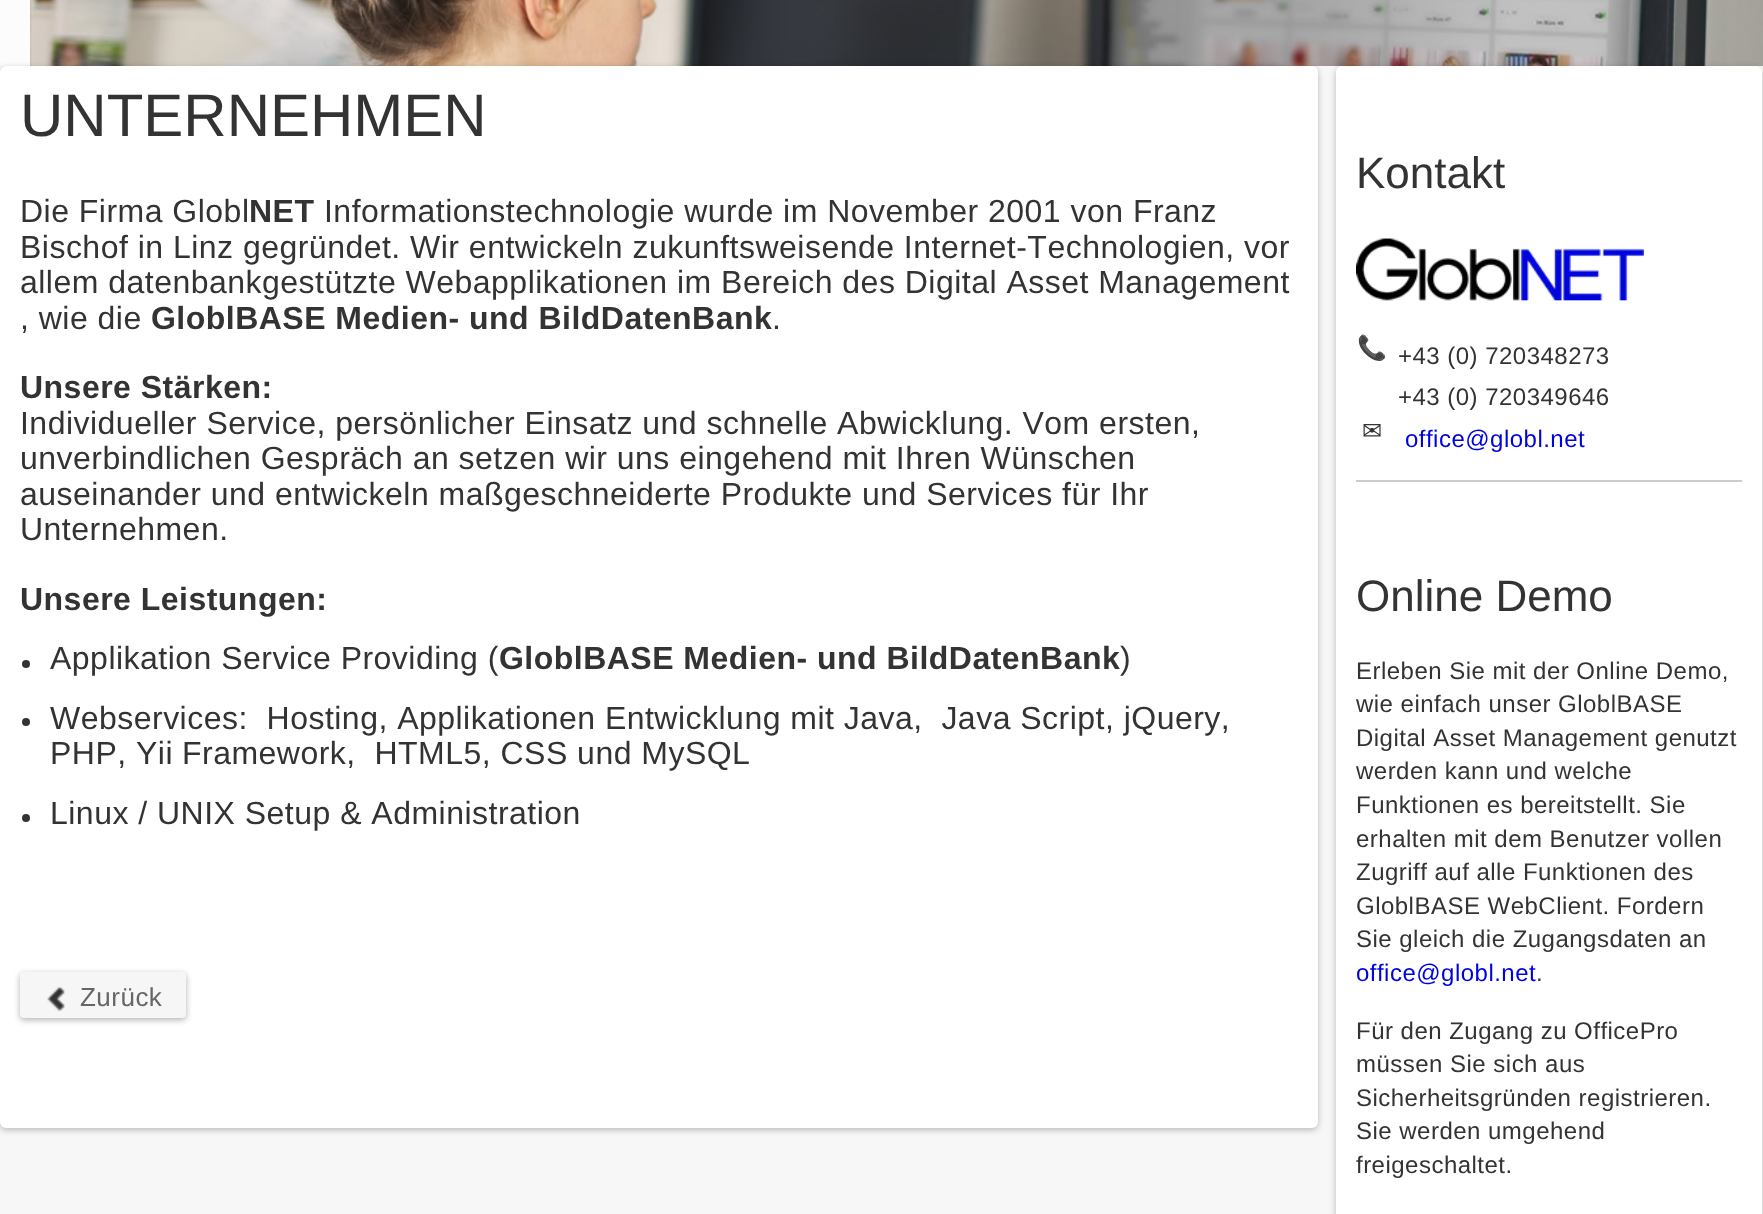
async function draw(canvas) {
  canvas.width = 1763
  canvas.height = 1214
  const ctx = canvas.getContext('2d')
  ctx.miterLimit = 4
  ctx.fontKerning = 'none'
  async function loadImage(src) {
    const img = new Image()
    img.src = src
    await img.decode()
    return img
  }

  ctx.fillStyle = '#f7f7f7'
  ctx.fillRect(0, 0, 1763, 1214)
  ctx.fillStyle = '#fcfcfc'
  ctx.fillRect(0, 0, 30, 66)
  ctx.drawImage(await loadImage('image0.png'), 30, 0, 1733, 66)
  ctx.fillStyle = '#00000040'
  ctx.filter = 'blur(3px)'
  ctx.beginPath()
  ctx.roundRect(0, 68, 1318, 1062, 6)
  ctx.fill()
  ctx.filter = 'none'
  ctx.fillStyle = '#fff'
  ctx.beginPath()
  ctx.roundRect(0, 66, 1318, 1062, 6)
  ctx.fill()
  ctx.font = '60px Liberation Sans'
  ctx.fillStyle = '#333'
  ctx.fillText('UNTERNEHMEN', 20, 136)
  ctx.letterSpacing = '0.48px'
  ctx.font = '32px Liberation Sans'
  ctx.fillText('Die Firma Globl', 20, 222)
  ctx.font = 'bold 32px Liberation Sans'
  ctx.fillText('NET', 249, 222)
  ctx.font = '32px Liberation Sans'
  ctx.fillText('Informationstechnologie wurde im November 2001 von Franz', 324, 222)
  ctx.fillText('Bischof in Linz gegründet. Wir entwickeln zukunftsweisende Internet-Technologien, vor', 20, 258)
  ctx.fillText('allem datenbankgestützte Webapplikationen im Bereich des Digital Asset Management', 20, 293)
  ctx.fillText(', wie die', 20, 329)
  ctx.font = 'bold 32px Liberation Sans'
  ctx.fillText('GloblBASE Medien- und BildDatenBank', 151, 329)
  ctx.font = '32px Liberation Sans'
  ctx.fillText('.', 772, 329)
  ctx.font = 'bold 32px Liberation Sans'
  ctx.fillText('Unsere Stärken:', 20, 398)
  ctx.font = '32px Liberation Sans'
  ctx.fillText('Individueller Service, persönlicher Einsatz und schnelle Abwicklung. Vom ersten,', 20, 434)
  ctx.fillText('unverbindlichen Gespräch an setzen wir uns eingehend mit Ihren Wünschen', 20, 469)
  ctx.fillText('auseinander und entwickeln maßgeschneiderte Produkte und Services für Ihr', 20, 505)
  ctx.fillText('Unternehmen.', 20, 540)
  ctx.font = 'bold 32px Liberation Sans'
  ctx.fillText('Unsere Leistungen:', 20, 610)
  ctx.beginPath()
  ctx.arc(26, 664, 4, 0, 2 * Math.PI)
  ctx.fill()
  ctx.font = '32px Liberation Sans'
  ctx.fillText('Applikation Service Providing (', 50, 669)
  ctx.font = 'bold 32px Liberation Sans'
  ctx.fillText('GloblBASE Medien- und BildDatenBank', 499, 669)
  ctx.font = '32px Liberation Sans'
  ctx.fillText(')', 1120, 669)
  ctx.beginPath()
  ctx.arc(26, 722, 4, 0, 2 * Math.PI)
  ctx.fill()
  ctx.fillText('Webservices:  Hosting, Applikationen Entwicklung mit Java,  Java Script, jQuery,', 50, 729)
  ctx.fillText('PHP, Yii', 50, 764)
  ctx.fillText('Framework,  HTML5, CSS und MySQL', 182, 764)
  ctx.beginPath()
  ctx.arc(26, 818, 4, 0, 2 * Math.PI)
  ctx.fill()
  ctx.fillText('Linux / UNIX Setup & Administration', 50, 824)
  ctx.fillStyle = '#0000004d'
  ctx.filter = 'blur(3px)'
  ctx.beginPath()
  ctx.roundRect(20, 974, 166, 46, 4)
  ctx.fill()
  ctx.filter = 'none'
  ctx.fillStyle = '#f6f6f6'
  ctx.beginPath()
  ctx.roundRect(20, 972, 166, 46, 4)
  ctx.fill()
  ctx.drawImage(await loadImage('image1.png'), 47, 987, 18, 25)
  ctx.font = '26px Liberation Sans'
  ctx.fillStyle = '#666'
  ctx.fillText('Zurück', 80, 1006)
  ctx.fillStyle = '#00000040'
  ctx.filter = 'blur(3px)'
  ctx.beginPath()
  ctx.roundRect(1336, 68, 426, 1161, 6)
  ctx.fill()
  ctx.filter = 'none'
  ctx.fillStyle = '#fff'
  ctx.beginPath()
  ctx.roundRect(1336, 66, 426, 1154, 6)
  ctx.fill()
  ctx.letterSpacing = '0px'
  ctx.font = '44px Liberation Sans'
  ctx.fillStyle = '#333'
  ctx.fillText('Kontakt', 1356, 188)
  ctx.drawImage(await loadImage('image2.png'), 1356, 238, 288, 63)
  ctx.letterSpacing = '0.48px'
  ctx.font = '24px Noto Color Emoji'
  ctx.fillText('📞', 1357, 356)
  ctx.font = '24px Liberation Sans'
  ctx.fillText('+43 (0) 720348273', 1398, 364)
  ctx.fillText('+43 (0) 720349646', 1398, 405)
  ctx.font = '24px DejaVu Sans'
  ctx.fillText('✉', 1362, 439)
  ctx.font = '24px Liberation Sans'
  ctx.fillStyle = '#0004dc'
  ctx.fillText('office@globl.net', 1405, 447)
  ctx.fillStyle = '#ccc'
  ctx.fillRect(1356, 480, 386, 2)
  ctx.letterSpacing = '0px'
  ctx.font = '44px Liberation Sans'
  ctx.fillStyle = '#333'
  ctx.fillText('Online Demo', 1356, 611)
  ctx.letterSpacing = '0.48px'
  ctx.font = '24px Liberation Sans'
  ctx.fillText('Erleben Sie mit der Online Demo,', 1356, 679)
  ctx.fillText('wie einfach unser GloblBASE', 1356, 712)
  ctx.fillText('Digital Asset Management genutzt', 1356, 746)
  ctx.fillText('werden kann und welche', 1356, 779)
  ctx.fillText('Funktionen es bereitstellt. Sie', 1356, 813)
  ctx.fillText('erhalten mit dem Benutzer vollen', 1356, 847)
  ctx.fillText('Zugriff auf alle Funktionen des', 1356, 880)
  ctx.fillText('GloblBASE WebClient. Fordern', 1356, 914)
  ctx.fillText('Sie gleich die Zugangsdaten an', 1356, 947)
  ctx.fillStyle = '#0004dc'
  ctx.fillText('office@globl.net', 1356, 981)
  ctx.fillStyle = '#333'
  ctx.fillText('.', 1536, 981)
  ctx.fillText('Für den Zugang zu OfficePro', 1356, 1039)
  ctx.fillText('müssen Sie sich aus', 1356, 1072)
  ctx.fillText('Sicherheitsgründen registrieren.', 1356, 1106)
  ctx.fillText('Sie werden umgehend', 1356, 1139)
  ctx.fillText('freigeschaltet.', 1356, 1173)
}

draw(document.querySelector('canvas'))
